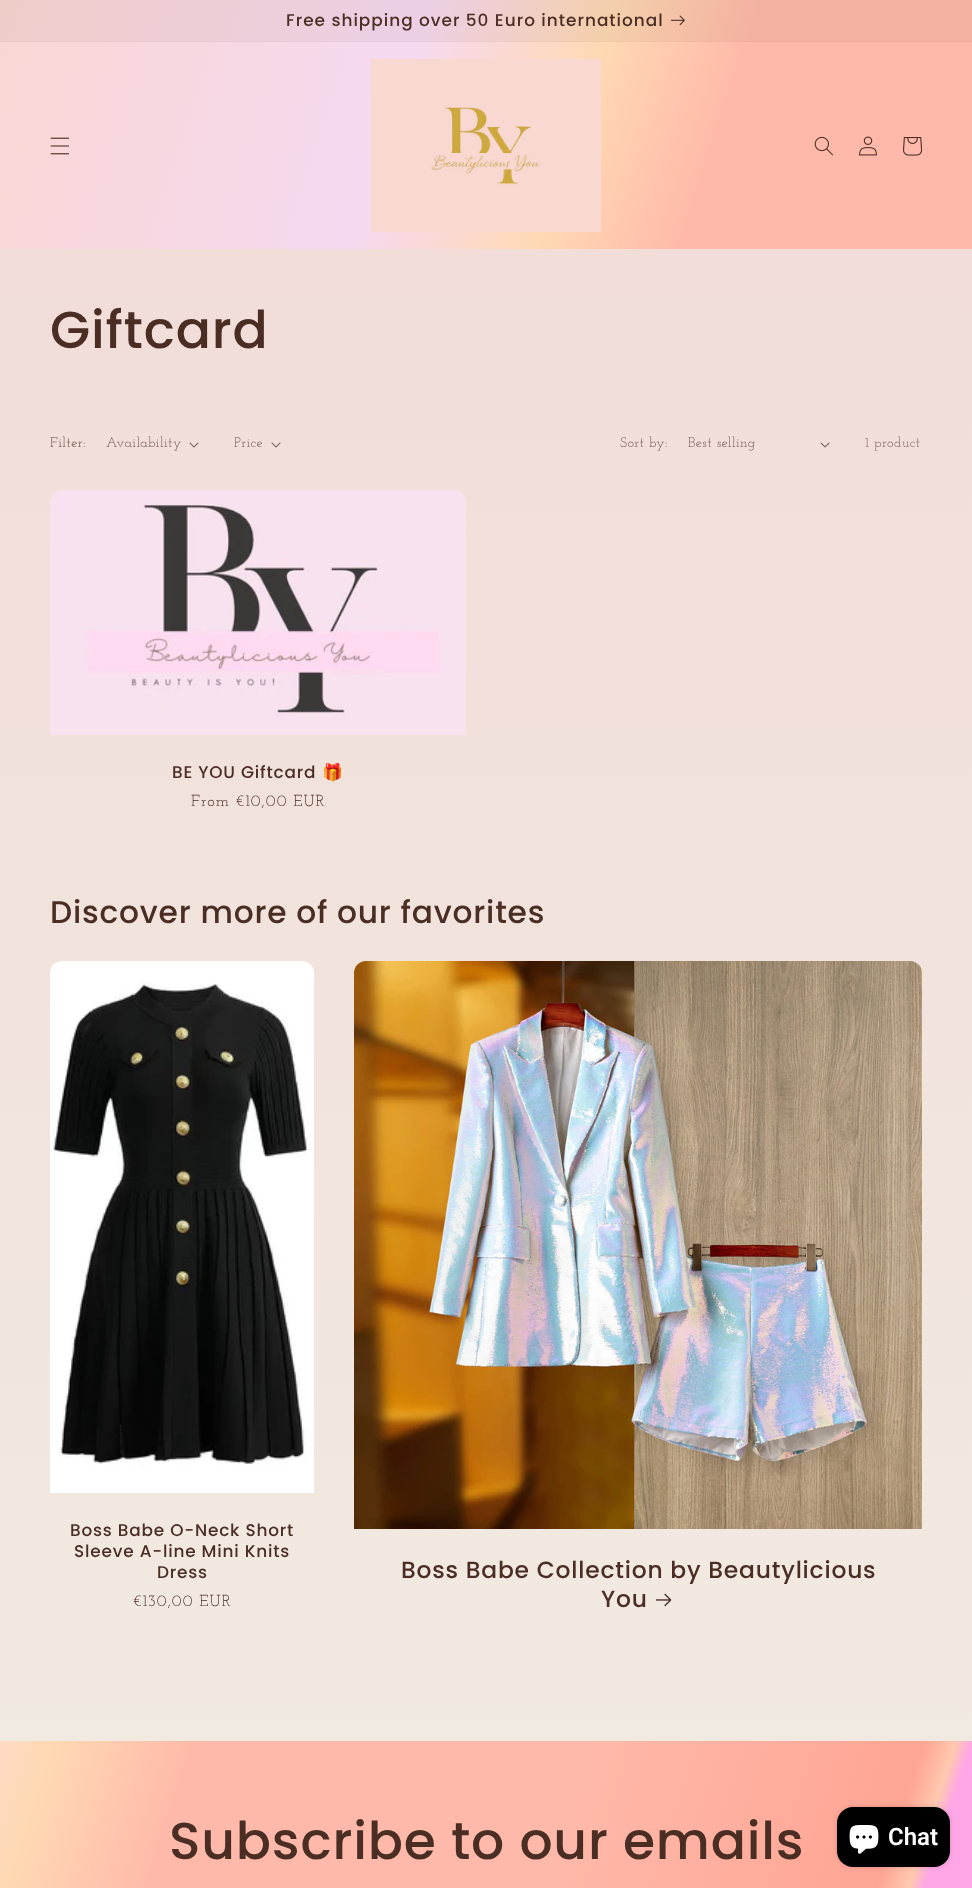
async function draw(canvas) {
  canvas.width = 972
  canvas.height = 1888
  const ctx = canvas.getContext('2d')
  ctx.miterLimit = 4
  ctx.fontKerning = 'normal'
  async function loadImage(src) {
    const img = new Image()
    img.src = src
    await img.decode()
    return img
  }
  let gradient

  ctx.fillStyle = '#fff'
  ctx.fillRect(0, 0, 972, 1888)
  gradient = ctx.createLinearGradient(486, 0, 486, 1888)
  gradient.addColorStop(0, '#f2dbd7')
  gradient.addColorStop(1, '#f1ebe2')
  ctx.fillStyle = gradient
  ctx.fillRect(0, 249, 972, 1492)
  gradient = ctx.createLinearGradient(-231, 711, 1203, 1177)
  gradient.addColorStop(0, '#eecdc8')
  gradient.addColorStop(0.27, '#eccfe5')
  gradient.addColorStop(0.39, '#f4cfaa')
  gradient.addColorStop(0.48, '#f4b1a2')
  gradient.addColorStop(0.73, '#f4b1a2')
  gradient.addColorStop(0.94, '#f49e8d')
  gradient.addColorStop(0.96, '#f4c0a7')
  gradient.addColorStop(0.97, '#f4a0da')
  ctx.fillStyle = gradient
  ctx.fillRect(0, 0, 972, 41)
  gradient = ctx.createLinearGradient(-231, 711, 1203, 1177)
  gradient.addColorStop(0, '#eac9c4')
  gradient.addColorStop(0.27, '#e8cbe1')
  gradient.addColorStop(0.39, '#f1cba8')
  gradient.addColorStop(0.48, '#f1ae9f')
  gradient.addColorStop(0.73, '#f1ae9f')
  gradient.addColorStop(0.94, '#f19b8b')
  gradient.addColorStop(0.96, '#f1bda4')
  gradient.addColorStop(0.97, '#f19dd6')
  ctx.fillStyle = gradient
  ctx.fillRect(0, 41, 972, 1)
  ctx.letterSpacing = '1px'
  ctx.font = '500 16.9px Poppins'
  ctx.fillStyle = '#4a2e24'
  ctx.fillText('Free shipping over 50 Euro international', 286, 26)
  ctx.drawImage(await loadImage('image0.png'), 671, 15, 14, 11)
  gradient = ctx.createLinearGradient(-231, 711, 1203, 1177)
  gradient.addColorStop(0, '#f8d7d2')
  gradient.addColorStop(0.27, '#f6d9f1')
  gradient.addColorStop(0.39, '#ffd9b3')
  gradient.addColorStop(0.48, '#ffb9aa')
  gradient.addColorStop(0.73, '#ffb9aa')
  gradient.addColorStop(0.94, '#ffa594')
  gradient.addColorStop(0.96, '#ffc9af')
  gradient.addColorStop(0.97, '#ffa7e6')
  ctx.fillStyle = gradient
  ctx.fillRect(0, 42, 972, 207)
  ctx.drawImage(await loadImage('image1.png'), 50, 137, 20, 18)
  ctx.drawImage(await loadImage('image2.png'), 371, 59, 230, 173)
  ctx.drawImage(await loadImage('image3.png'), 814, 136, 19, 20)
  ctx.drawImage(await loadImage('image4.png'), 859, 136, 18, 20)
  ctx.drawImage(await loadImage('image5.png'), 903, 137, 20, 19)
  ctx.letterSpacing = '0.8px'
  ctx.font = '500 52px Poppins'
  ctx.fillStyle = '#4a2e24'
  ctx.fillText('Giftcard', 50, 348)
  ctx.letterSpacing = '0.4px'
  ctx.font = '14px Josefin Slab'
  ctx.fillStyle = '#63493f'
  ctx.fillText('Filter:', 50, 447)
  ctx.fillStyle = '#745a52'
  ctx.fillText('Availability', 106, 447)
  ctx.drawImage(await loadImage('image6.png'), 189, 442, 10, 6)
  ctx.fillText('Price', 234, 447)
  ctx.drawImage(await loadImage('image6.png'), 271, 442, 10, 6)
  ctx.fillText('Sort by:', 620, 447)
  ctx.fillText('Best selling', 688, 447)
  ctx.drawImage(await loadImage('image6.png'), 820, 442, 10, 6)
  ctx.letterSpacing = '0.5px'
  ctx.fillStyle = '#7c635b'
  ctx.fillText('1 product', 865, 447)
  ctx.drawImage(await loadImage('image7.png'), 50, 490, 416, 245)
  ctx.letterSpacing = '0.8px'
  ctx.font = '500 16.9px Poppins'
  ctx.fillStyle = '#4a2e24'
  ctx.fillText('BE YOU Giftcard', 172, 778)
  ctx.font = '16.9px Noto Color Emoji'
  ctx.fillText('🎁', 322, 778)
  ctx.letterSpacing = '1px'
  ctx.font = '16px Josefin Slab'
  ctx.fillText('From €10,00 EUR', 191, 806)
  ctx.letterSpacing = '0.8px'
  ctx.font = '500 31.25px Poppins'
  ctx.fillText('Discover more of our favorites', 50, 923)
  ctx.drawImage(await loadImage('image8.png'), 50, 961, 264, 532)
  ctx.font = '500 16.9px Poppins'
  ctx.fillText('Boss Babe O-Neck Short', 70, 1536)
  ctx.fillText('Sleeve A-line Mini Knits', 74, 1557)
  ctx.fillText('Dress', 157, 1578)
  ctx.letterSpacing = '1px'
  ctx.font = '16px Josefin Slab'
  ctx.fillText('€130,00 EUR', 133, 1606)
  ctx.drawImage(await loadImage('image9.png'), 354, 961, 568, 568)
  ctx.letterSpacing = '0.8px'
  ctx.font = '500 23.4px Poppins'
  ctx.fillText('Boss Babe Collection by Beautylicious', 401, 1578)
  ctx.fillText('You', 601, 1607)
  ctx.drawImage(await loadImage('image10.png'), 656, 1593, 16, 14)
  gradient = ctx.createLinearGradient(-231, 711, 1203, 1177)
  gradient.addColorStop(0, '#f8d7d2')
  gradient.addColorStop(0.27, '#f6d9f1')
  gradient.addColorStop(0.39, '#ffd9b3')
  gradient.addColorStop(0.48, '#ffb9aa')
  gradient.addColorStop(0.73, '#ffb9aa')
  gradient.addColorStop(0.94, '#ffa594')
  gradient.addColorStop(0.96, '#ffc9af')
  gradient.addColorStop(0.97, '#ffa7e6')
  ctx.fillStyle = gradient
  ctx.fillRect(0, 1741, 972, 147)
  ctx.font = '500 52px Poppins'
  ctx.fillStyle = '#4a2e24'
  ctx.fillText('Subscribe to our emails', 169, 1859)
  ctx.fillStyle = '#00000026'
  ctx.filter = 'blur(2.5px)'
  ctx.beginPath()
  ctx.roundRect(837, 1807, 113, 60, 16)
  ctx.fill()
  ctx.filter = 'none'
  ctx.fillStyle = '#000'
  ctx.beginPath()
  ctx.roundRect(837, 1807, 113, 60, 16)
  ctx.fill()
  ctx.drawImage(await loadImage('image11.png'), 849, 1825, 30, 29)
  ctx.letterSpacing = '0px'
  ctx.font = '600 24px Roboto'
  ctx.fillStyle = '#fff'
  ctx.fillText('Chat', 888, 1845)
}

draw(document.querySelector('canvas'))
